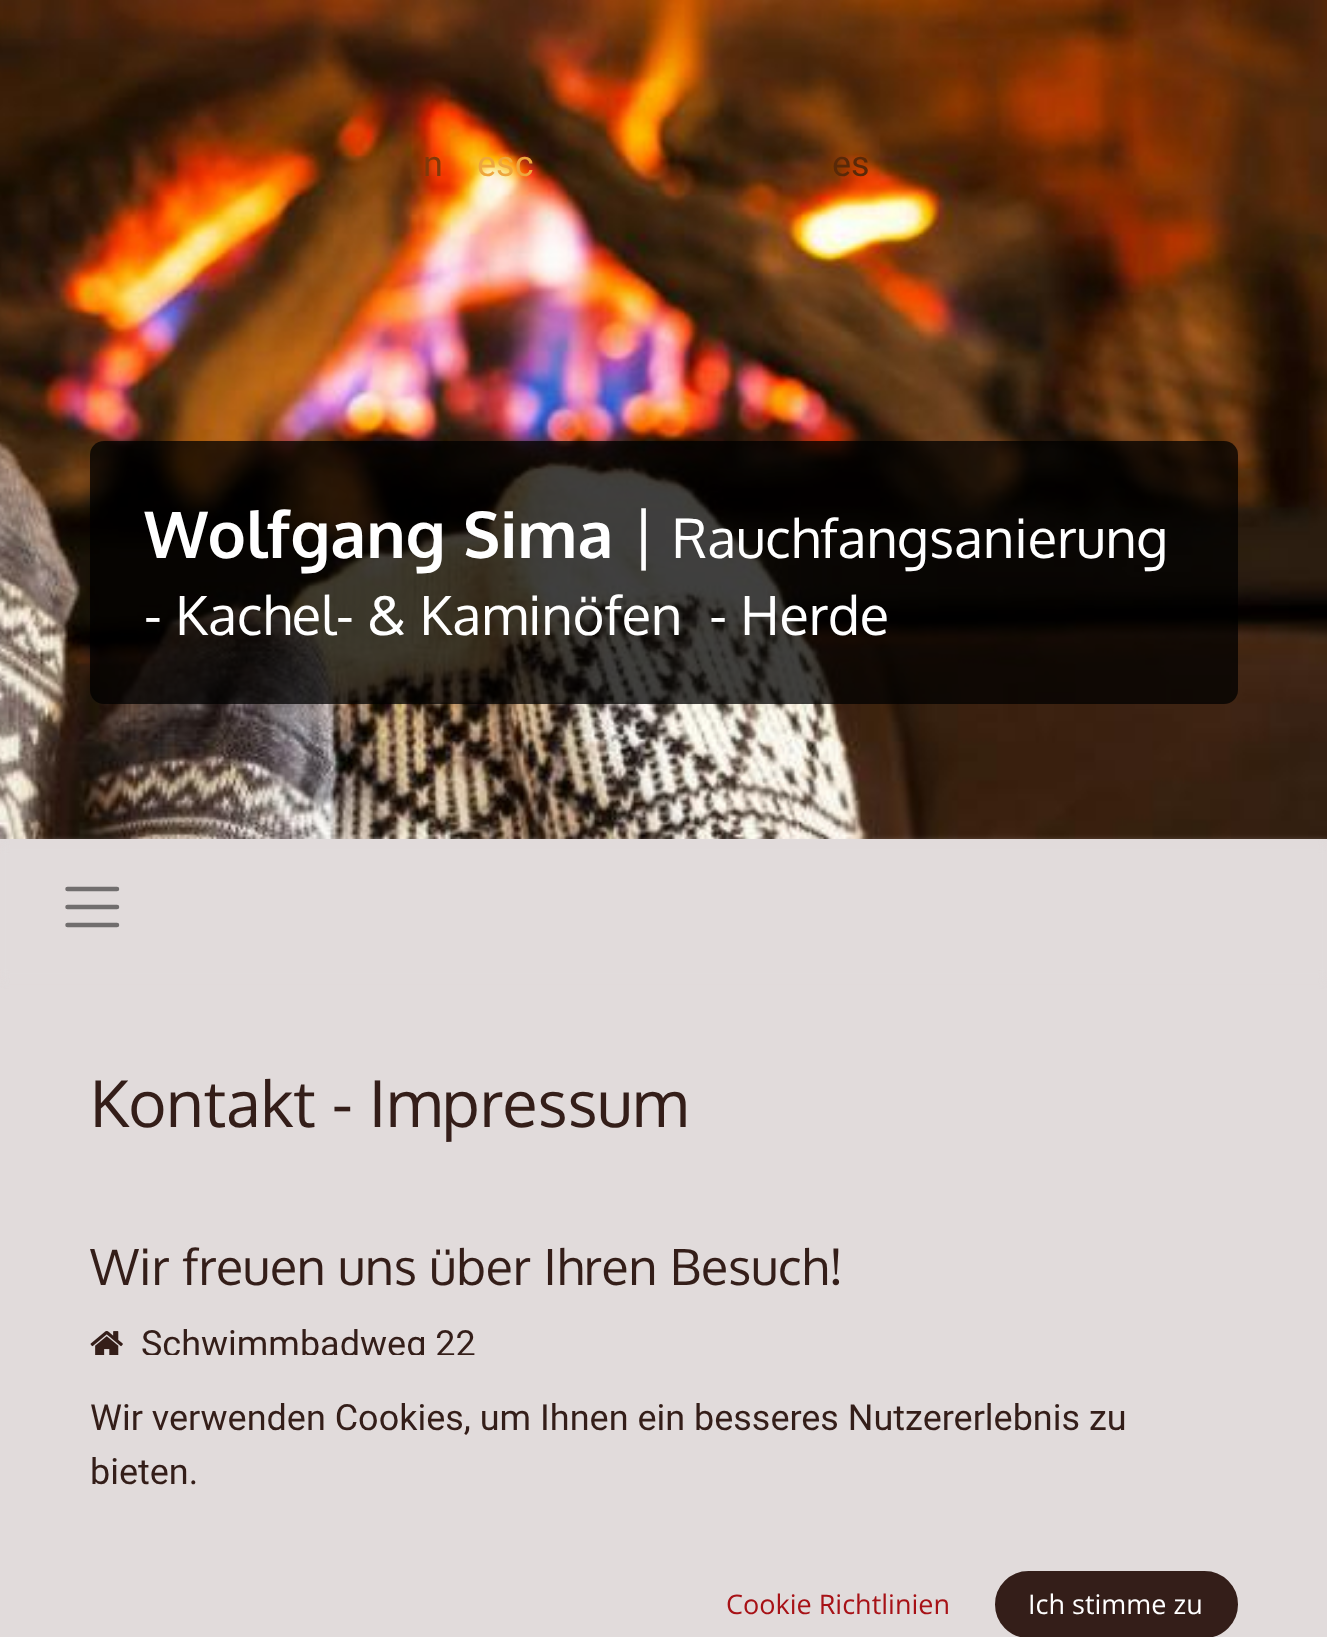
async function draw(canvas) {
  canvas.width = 1327
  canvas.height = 1637
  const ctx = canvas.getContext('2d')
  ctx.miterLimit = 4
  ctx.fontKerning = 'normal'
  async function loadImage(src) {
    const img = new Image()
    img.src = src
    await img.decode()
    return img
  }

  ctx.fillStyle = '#e1dbdb'
  ctx.fillRect(0, 0, 1327, 1637)
  ctx.drawImage(await loadImage('image0.png'), 0, 0, 1327, 839)
  ctx.font = '36px Roboto'
  ctx.fillStyle = '#813809'
  ctx.fillText('n', 423, 176)
  ctx.fillStyle = '#eea63d'
  ctx.fillText('esc', 477, 176)
  ctx.fillStyle = '#592908'
  ctx.fillText('es', 832, 176)
  ctx.fillStyle = '#000000bf'
  ctx.beginPath()
  ctx.roundRect(90, 441, 1148, 263, 14)
  ctx.fill()
  ctx.font = 'bold 64.5px Oxygen'
  ctx.fillStyle = '#fff'
  ctx.fillText('Wolfgang Sima', 144, 558)
  ctx.font = '64.5px Oxygen'
  ctx.fillText('|', 631, 558)
  ctx.font = '54px Oxygen'
  ctx.fillText('Rauchfangsanierung', 672, 558)
  ctx.fillText('- Kachel- & Kaminöfen  - Herde', 144, 635)
  ctx.fillStyle = '#e1dbdb'
  ctx.filter = 'blur(4.5px)'
  ctx.beginPath()
  ctx.rect(0, 844, 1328, 135)
  ctx.fill()
  ctx.filter = 'none'
  ctx.beginPath()
  ctx.moveTo(67.5, 889)
  ctx.lineTo(117, 889)
  ctx.moveTo(67.5, 907)
  ctx.lineTo(117, 907)
  ctx.moveTo(67.5, 925)
  ctx.lineTo(117, 925)
  ctx.strokeStyle = '#716e6e'
  ctx.lineWidth = 4.5
  ctx.lineCap = 'round'
  ctx.stroke()
  ctx.font = '64.5px Oxygen'
  ctx.fillStyle = '#341e19'
  ctx.fillText('Kontakt - Impressum', 90, 1127)
  ctx.font = '49.9px Oxygen'
  ctx.fillText('Wir freuen uns über Ihren Besuch!', 90, 1285)
  ctx.drawImage(await loadImage('image1.png'), 90, 1331, 33, 24)
  ctx.font = '36px Roboto'
  ctx.fillText('Schwimmbadweg 22', 141, 1356)
  ctx.fillStyle = '#e1dbdb'
  ctx.fillRect(147, 1355, 328, 9)
  ctx.fillStyle = '#341e19'
  ctx.fillText('Wir verwenden Cookies, um Ihnen ein besseres Nutzererlebnis zu', 90, 1430)
  ctx.fillText('bieten.', 90, 1484)
  ctx.font = '27px Open Sans'
  ctx.fillStyle = '#a71116'
  ctx.fillText('Cookie Richtlinien', 726, 1614)
  ctx.fillStyle = '#341e19'
  ctx.beginPath()
  ctx.roundRect(996, 1572, 241, 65, 32.5)
  ctx.fill()
  ctx.strokeStyle = '#341e19'
  ctx.lineWidth = 2
  ctx.stroke()
  ctx.fillStyle = '#fff'
  ctx.fillText('Ich stimme zu', 1028, 1614)
}

draw(document.querySelector('canvas'))
